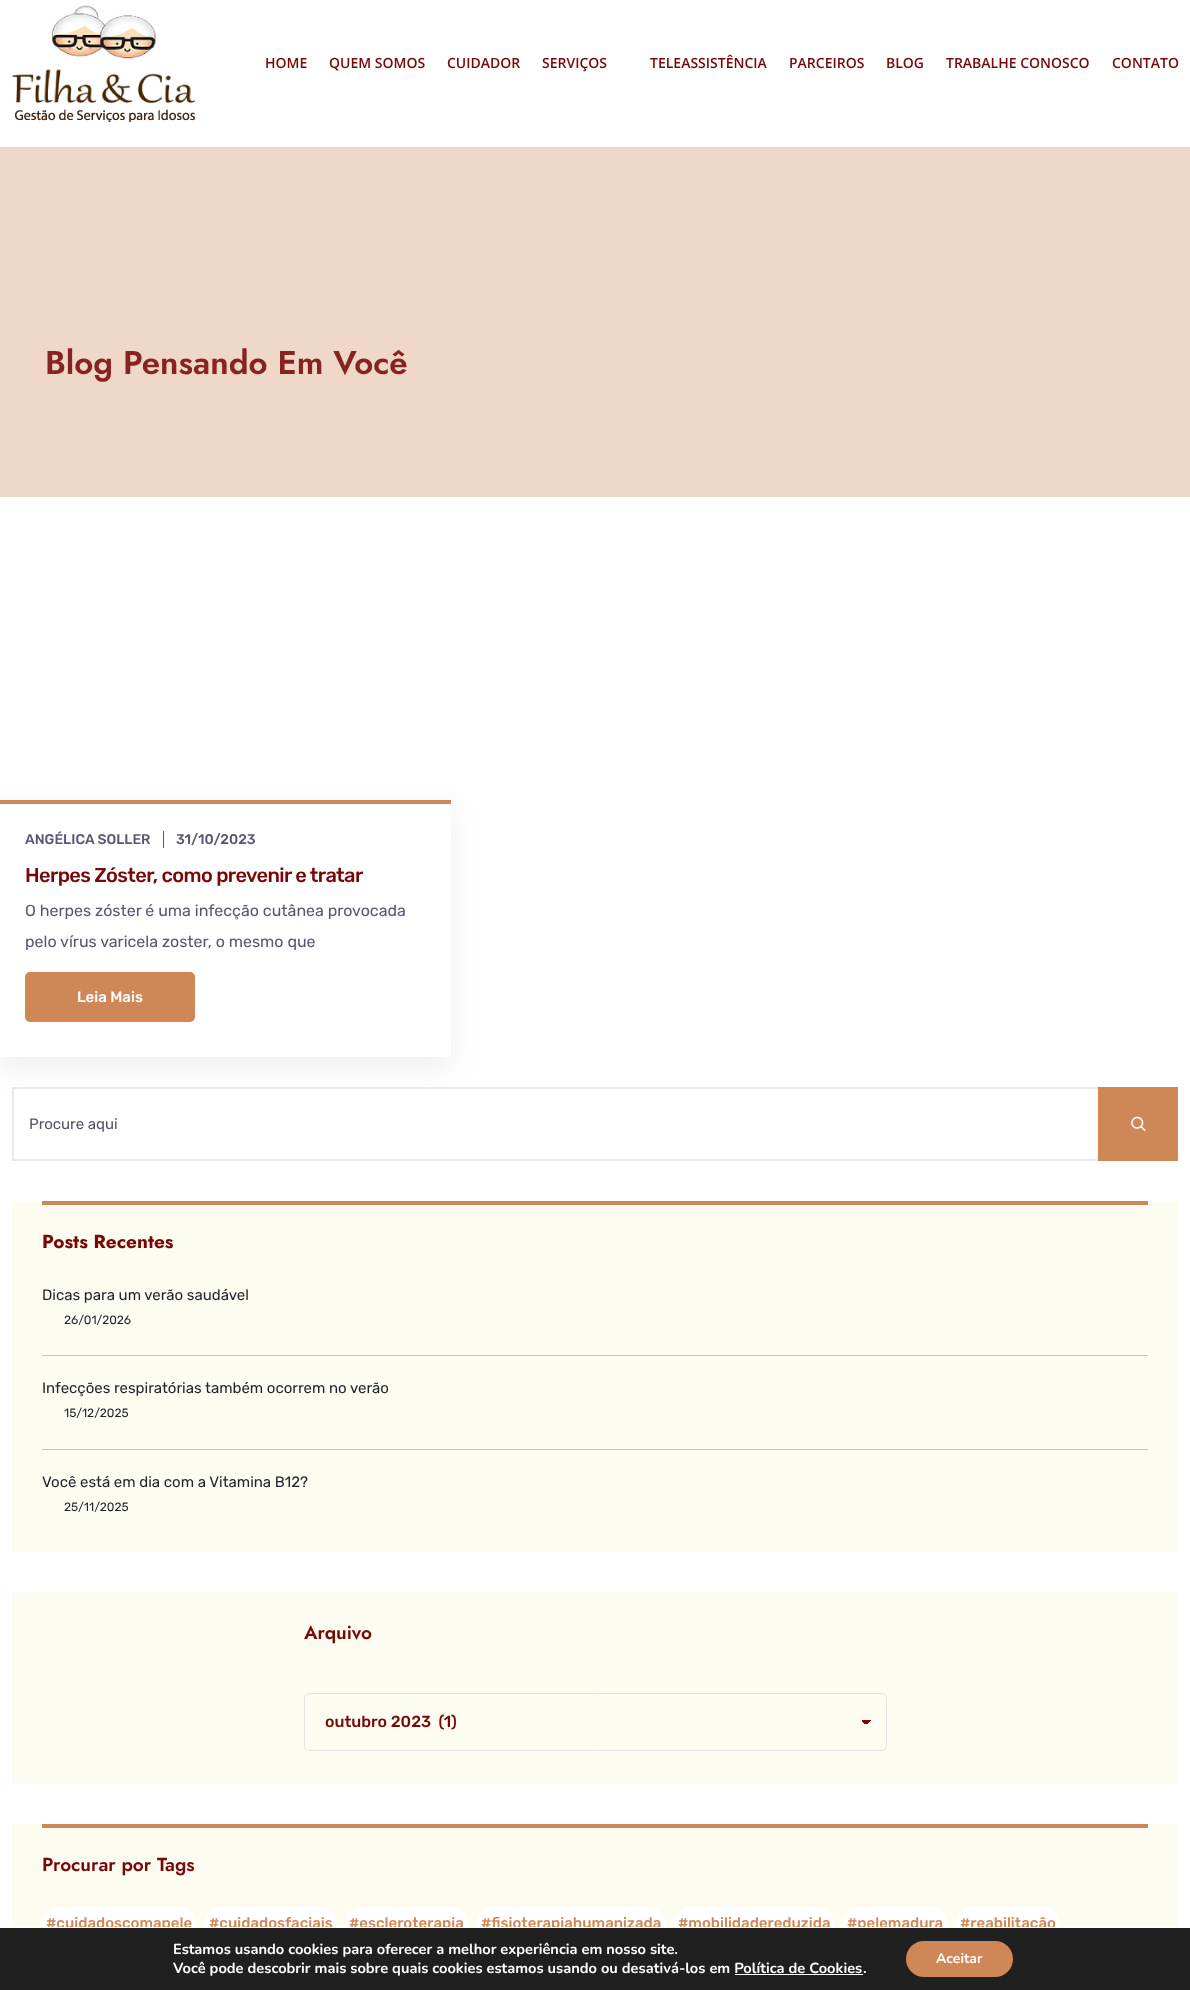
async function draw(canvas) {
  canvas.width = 1190
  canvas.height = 1990
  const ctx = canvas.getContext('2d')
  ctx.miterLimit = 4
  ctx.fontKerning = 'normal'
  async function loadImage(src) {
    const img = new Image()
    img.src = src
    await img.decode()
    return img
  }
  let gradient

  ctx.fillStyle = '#fff'
  ctx.fillRect(0, 0, 1190, 1990)
  ctx.drawImage(await loadImage('image0.png'), 10, 5, 186, 117)
  ctx.font = '600 14px Open Sans'
  ctx.fillStyle = '#770808'
  ctx.fillText('HOME', 265, 68)
  ctx.fillText('QUEM SOMOS', 329, 68)
  ctx.fillText('CUIDADOR', 447, 68)
  ctx.fillText('SERVIÇOS', 542, 68)
  ctx.fillText('TELEASSISTÊNCIA', 650, 68)
  ctx.fillText('PARCEIROS', 789, 68)
  ctx.fillText('BLOG', 886, 68)
  ctx.fillText('TRABALHE CONOSCO', 946, 68)
  ctx.fillText('CONTATO', 1112, 68)
  ctx.fillStyle = '#f0d8c8'
  ctx.fillRect(0, 147, 1190, 350)
  ctx.font = '600 33px Jost'
  ctx.fillStyle = '#872321'
  ctx.fillText('Blog Pensando Em Você', 45, 374)
  ctx.strokeStyle = '#eaeaea'
  ctx.lineWidth = 2
  ctx.strokeRect(13, 1088, 1164, 72)
  ctx.save()
  ctx.beginPath()
  ctx.moveTo(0, 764)
  ctx.lineTo(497, 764)
  ctx.lineTo(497, 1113)
  ctx.lineTo(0, 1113)
  ctx.closePath()
  ctx.moveTo(-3, 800)
  ctx.lineTo(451, 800)
  ctx.lineTo(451, 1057)
  ctx.lineTo(-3, 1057)
  ctx.closePath()
  ctx.clip('evenodd')
  ctx.fillStyle = '#00000012'
  ctx.filter = 'blur(15px)'
  ctx.beginPath()
  ctx.rect(-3, 810, 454, 257)
  ctx.fill()
  ctx.filter = 'none'
  ctx.restore()
  ctx.fillStyle = '#d08758'
  ctx.fillRect(0, 800, 451, 4)
  ctx.font = '500 14px Rubik'
  ctx.fillStyle = '#565872'
  ctx.fillText('ANGÉLICA SOLLER', 25, 844)
  ctx.fillText('31/10/2023', 176, 844)
  ctx.fillRect(163, 831, 1, 17)
  ctx.letterSpacing = '-0.6px'
  ctx.font = '500 20px Rubik'
  ctx.fillStyle = '#770808'
  ctx.fillText('Herpes Zóster, como prevenir e tratar', 25, 882)
  ctx.letterSpacing = '0px'
  ctx.font = '16px Rubik'
  ctx.fillStyle = '#565872'
  ctx.fillText('O herpes zóster é uma infecção cutânea provocada', 25, 916)
  ctx.fillText('pelo vírus varicela zoster, o mesmo que', 25, 947)
  ctx.fillStyle = '#d08758'
  ctx.beginPath()
  ctx.roundRect(25, 972, 170, 50, 5)
  ctx.fill()
  ctx.font = '500 15px Rubik'
  ctx.fillStyle = '#fff'
  ctx.fillText('Leia Mais', 77, 1002)
  ctx.font = '15px Rubik'
  ctx.fillStyle = '#525368'
  ctx.fillText('Procure aqui', 29, 1129)
  ctx.fillStyle = '#d08758'
  ctx.fillRect(1098, 1087, 80, 74)
  ctx.drawImage(await loadImage('image1.png'), 1131, 1116, 15, 16)
  ctx.fillStyle = '#fdfcf0'
  ctx.fillRect(12, 1201, 1166, 351)
  ctx.fillStyle = '#d08758'
  ctx.fillRect(42, 1201, 1106, 4)
  ctx.font = 'bold 19px Jost'
  ctx.fillStyle = '#770808'
  ctx.fillText('Posts Recentes', 42, 1248)
  ctx.fillStyle = '#c5c5c5'
  ctx.fillRect(42, 1355, 1106, 1)
  ctx.font = '15px Rubik'
  ctx.fillStyle = '#1f242c'
  ctx.fillText('Dicas para um verão saudável', 42, 1300)
  ctx.font = '12px Rubik'
  ctx.fillText('26/01/2026', 64, 1324)
  ctx.fillStyle = '#c5c5c5'
  ctx.fillRect(42, 1449, 1106, 1)
  ctx.font = '15px Rubik'
  ctx.fillStyle = '#1f242c'
  ctx.fillText('Infecções respiratórias também ocorrem no verão', 42, 1393)
  ctx.font = '12px Rubik'
  ctx.fillText('15/12/2025', 64, 1417)
  ctx.font = '15px Rubik'
  ctx.fillText('Você está em dia com a Vitamina B12?', 42, 1487)
  ctx.font = '12px Rubik'
  ctx.fillText('25/11/2025', 64, 1511)
  ctx.fillStyle = '#fdfcf0'
  ctx.fillRect(12, 1592, 1166, 192)
  ctx.font = '600 19px Jost'
  ctx.fillStyle = '#770808'
  ctx.fillText('Arquivo', 304, 1639)
  gradient = ctx.createLinearGradient(866, 1720, 871, 1725)
  gradient.addColorStop(0.5, '#770808')
  gradient.addColorStop(0.5, '#fdfcf0')
  ctx.fillStyle = gradient
  ctx.fillRect(866, 1720, 5, 4)
  gradient = ctx.createLinearGradient(861, 1725, 866, 1720)
  gradient.addColorStop(0.5, '#fdfcf0')
  gradient.addColorStop(0.5, '#770808')
  ctx.fillStyle = gradient
  ctx.fillRect(861, 1720, 5, 4)
  ctx.beginPath()
  ctx.roundRect(304.5, 1693.5, 582, 57, 4.5)
  ctx.strokeStyle = '#e3e3e3'
  ctx.lineWidth = 1
  ctx.stroke()
  ctx.font = '500 16px Rubik'
  ctx.fillStyle = '#770808'
  ctx.fillText('outubro 2023  (1)', 325, 1727)
  ctx.fillStyle = '#fdfcf0'
  ctx.fillRect(12, 1824, 1166, 103)
  ctx.fillStyle = '#d08758'
  ctx.fillRect(42, 1824, 1106, 4)
  ctx.font = '600 19px Jost'
  ctx.fillStyle = '#770808'
  ctx.fillText('Procurar por Tags', 42, 1871)
  ctx.fillStyle = '#fff'
  ctx.beginPath()
  ctx.roundRect(42, 1907, 154, 32, 16)
  ctx.fill()
  ctx.font = '500 15px Rubik'
  ctx.fillStyle = '#d08758'
  ctx.fillText('#cuidadoscomapele', 46, 1928)
  ctx.fillStyle = '#fff'
  ctx.beginPath()
  ctx.roundRect(205, 1907, 131, 32, 16)
  ctx.fill()
  ctx.fillStyle = '#d08758'
  ctx.fillText('#cuidadosfaciais', 209, 1928)
  ctx.fillStyle = '#fff'
  ctx.beginPath()
  ctx.roundRect(345, 1907, 123, 32, 16)
  ctx.fill()
  ctx.fillStyle = '#d08758'
  ctx.fillText('#escleroterapia', 349, 1928)
  ctx.fillStyle = '#fff'
  ctx.beginPath()
  ctx.roundRect(477, 1907, 188, 32, 16)
  ctx.fill()
  ctx.fillStyle = '#d08758'
  ctx.fillText('#fisioterapiahumanizada', 481, 1928)
  ctx.fillStyle = '#fff'
  ctx.beginPath()
  ctx.roundRect(674, 1907, 160, 32, 16)
  ctx.fill()
  ctx.fillStyle = '#d08758'
  ctx.fillText('#mobilidadereduzida', 678, 1928)
  ctx.fillStyle = '#fff'
  ctx.beginPath()
  ctx.roundRect(843, 1907, 104, 32, 16)
  ctx.fill()
  ctx.fillStyle = '#d08758'
  ctx.fillText('#pelemadura', 847, 1928)
  ctx.fillStyle = '#fff'
  ctx.beginPath()
  ctx.roundRect(956, 1907, 103, 32, 16)
  ctx.fill()
  ctx.fillStyle = '#d08758'
  ctx.fillText('#reabilitação', 960, 1928)
  ctx.fillStyle = '#202020'
  ctx.fillRect(0, 1928, 1190, 62)
  ctx.fillStyle = '#fff'
  ctx.fillRect(48, 1927, 1006, 1)
  ctx.font = 'bold 14.65px Nunito'
  ctx.fillText('Estamos usando cookies para oferecer a melhor experiência em nosso site.', 173, 1954)
  ctx.fillText('Você pode descobrir mais sobre quais cookies estamos usando ou desativá-los em Política de Cookies', 173, 1973)
  ctx.fillText('.', 863, 1973)
  ctx.fillRect(735, 1974, 128, 1)
  ctx.fillStyle = '#d08758'
  ctx.beginPath()
  ctx.roundRect(906, 1941, 107, 36, 18)
  ctx.fill()
  ctx.font = 'bold 14px Nunito'
  ctx.fillStyle = '#fff'
  ctx.fillText('Aceitar', 936, 1963)
}

draw(document.querySelector('canvas'))
